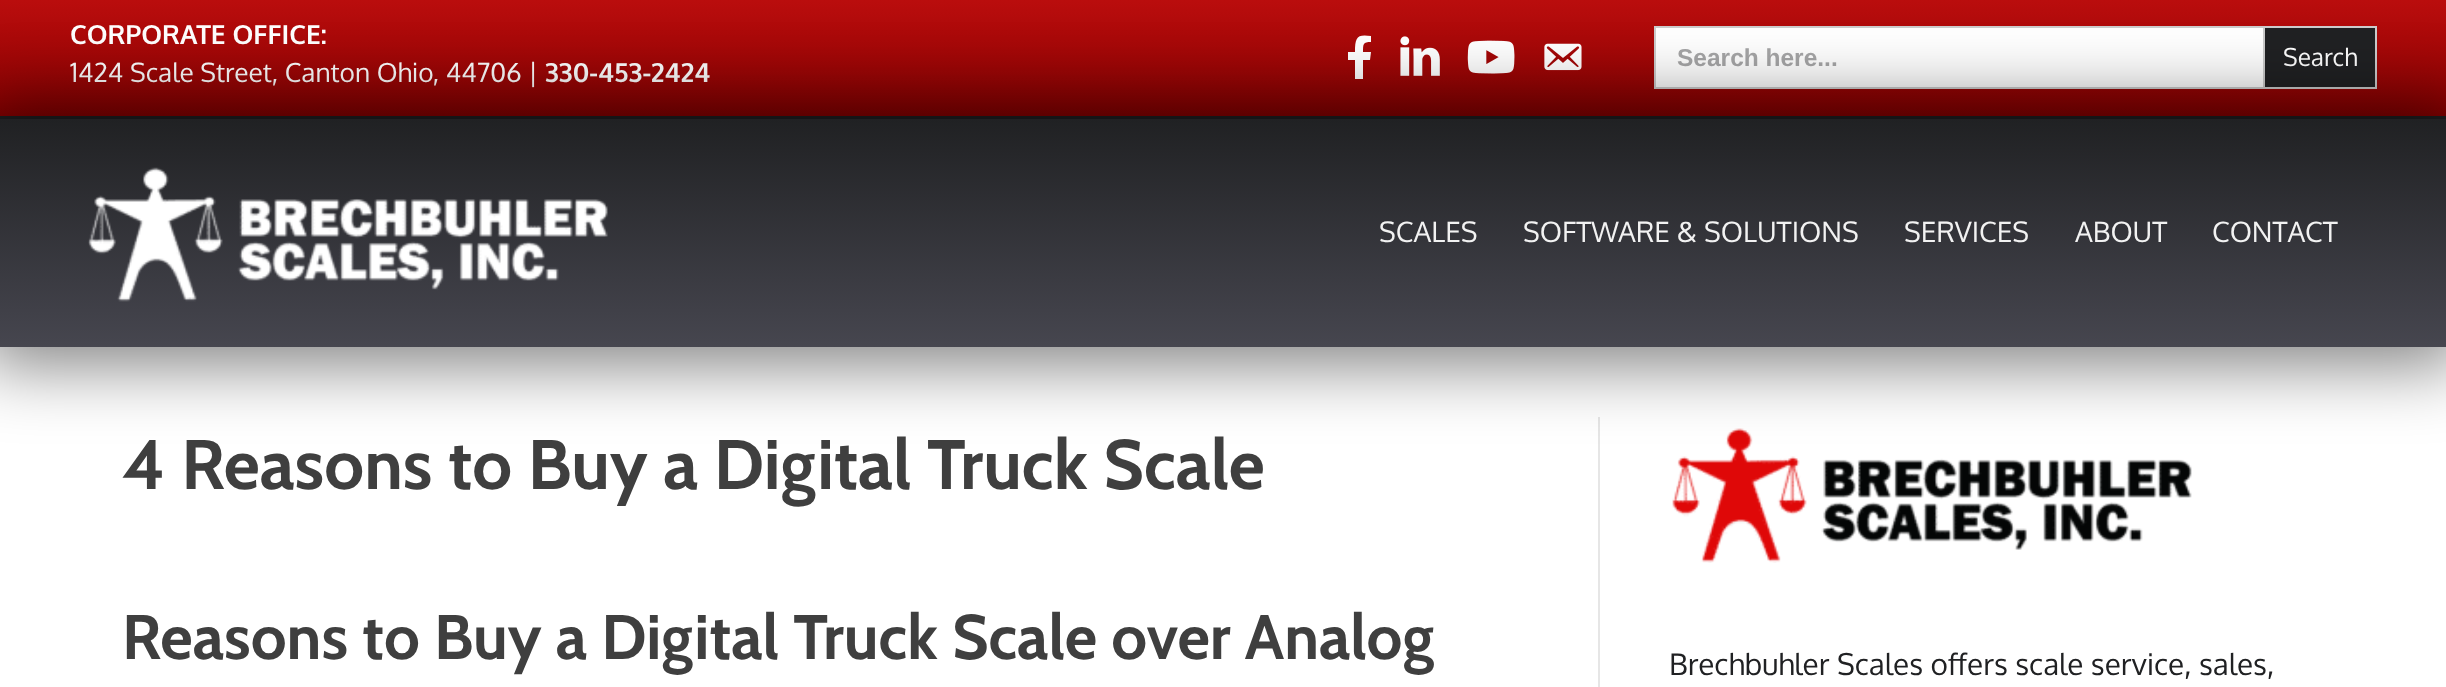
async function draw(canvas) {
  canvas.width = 2446
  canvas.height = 687
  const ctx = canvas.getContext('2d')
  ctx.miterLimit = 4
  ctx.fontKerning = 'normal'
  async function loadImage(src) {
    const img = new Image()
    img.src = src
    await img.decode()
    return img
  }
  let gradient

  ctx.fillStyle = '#fff'
  ctx.fillRect(0, 0, 2446, 687)
  gradient = ctx.createLinearGradient(1223, 0, 1223, 116)
  gradient.addColorStop(0, '#ba0d0d')
  gradient.addColorStop(1, '#8c0101')
  ctx.fillStyle = gradient
  ctx.fillRect(0, 0, 2446, 116)
  ctx.fillStyle = '#202123'
  ctx.fillRect(0, 116, 2446, 3)
  ctx.font = 'bold 26.25px Oxygen'
  ctx.fillStyle = '#fff'
  ctx.fillText('CORPORATE OFFICE:', 70, 44)
  ctx.font = '26.25px Oxygen'
  ctx.fillText('1424 Scale Street, Canton Ohio, 44706 |', 70, 82)
  ctx.font = 'bold 26.25px Oxygen'
  ctx.fillText('330-453-2424', 545, 82)
  ctx.beginPath()
  ctx.moveTo(1370, 60)
  ctx.lineTo(1363, 60)
  ctx.lineTo(1363, 79)
  ctx.lineTo(1355, 79)
  ctx.lineTo(1355, 60)
  ctx.lineTo(1348, 60)
  ctx.lineTo(1348, 52)
  ctx.lineTo(1355, 52)
  ctx.bezierCurveTo(1355, 37, 1357, 34, 1371, 36)
  ctx.lineTo(1371, 42)
  ctx.bezierCurveTo(1363, 42, 1363, 44, 1363, 52)
  ctx.lineTo(1371, 52)
  ctx.closePath()
  ctx.fill()
  ctx.drawImage(await loadImage('image0.png'), 1400, 36, 40, 40)
  ctx.drawImage(await loadImage('image1.png'), 1467, 40, 48, 34)
  ctx.drawImage(await loadImage('image2.png'), 1544, 43, 38, 28)
  ctx.fillRect(1656, 28, 607, 59)
  ctx.strokeStyle = '#ccc'
  ctx.lineWidth = 2
  ctx.strokeRect(1655, 27, 721, 61)
  ctx.font = 'bold 24.5px Liberation Sans'
  ctx.fillStyle = '#a6a6a7'
  ctx.fillText('Search here...', 1677, 66)
  ctx.fillStyle = '#202123'
  ctx.beginPath()
  ctx.rect(2264, 27, 112, 61)
  ctx.fill()
  ctx.stroke()
  ctx.font = '24.5px Oxygen'
  ctx.fillStyle = '#fff'
  ctx.fillText('Search', 2283, 66)
  ctx.fillStyle = '#e6e6e6'
  ctx.fillRect(1598, 417, 2, 270)
  ctx.drawImage(await loadImage('image4.png'), 1672, 428, 520, 135)
  ctx.fillStyle = '#00000080'
  ctx.filter = 'blur(35px)'
  ctx.beginPath()
  ctx.rect(-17, 102, 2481, 262)
  ctx.fill()
  ctx.filter = 'none'
  gradient = ctx.createLinearGradient(1223, 119, 1223, 347)
  gradient.addColorStop(0, '#202123')
  gradient.addColorStop(1, '#46464f')
  ctx.fillStyle = gradient
  ctx.fillRect(0, 119, 2446, 228)
  ctx.drawImage(await loadImage('image3.png'), 88, 167, 520, 135)
  ctx.font = '28px Oxygen'
  ctx.fillStyle = '#f2f2f2'
  ctx.fillText('SCALES', 1379, 242)
  ctx.fillText('SOFTWARE & SOLUTIONS', 1523, 242)
  ctx.fillText('SERVICES', 1904, 242)
  ctx.fillText('ABOUT', 2075, 242)
  ctx.fillText('CONTACT', 2212, 242)
  ctx.font = 'bold 70px Cabin'
  ctx.fillStyle = '#3f3f3f'
  ctx.fillText('4 Reasons to Buy a Digital Truck Scale', 122, 489)
  ctx.font = 'bold 63px Cabin'
  ctx.fillText('Reasons to Buy a Digital Truck Scale over Analog', 122, 659)
  ctx.font = '29.75px Oxygen'
  ctx.fillStyle = '#202123'
  ctx.fillText('Brechbuhler Scales offers scale service, sales,', 1669, 675)
}

draw(document.querySelector('canvas'))
